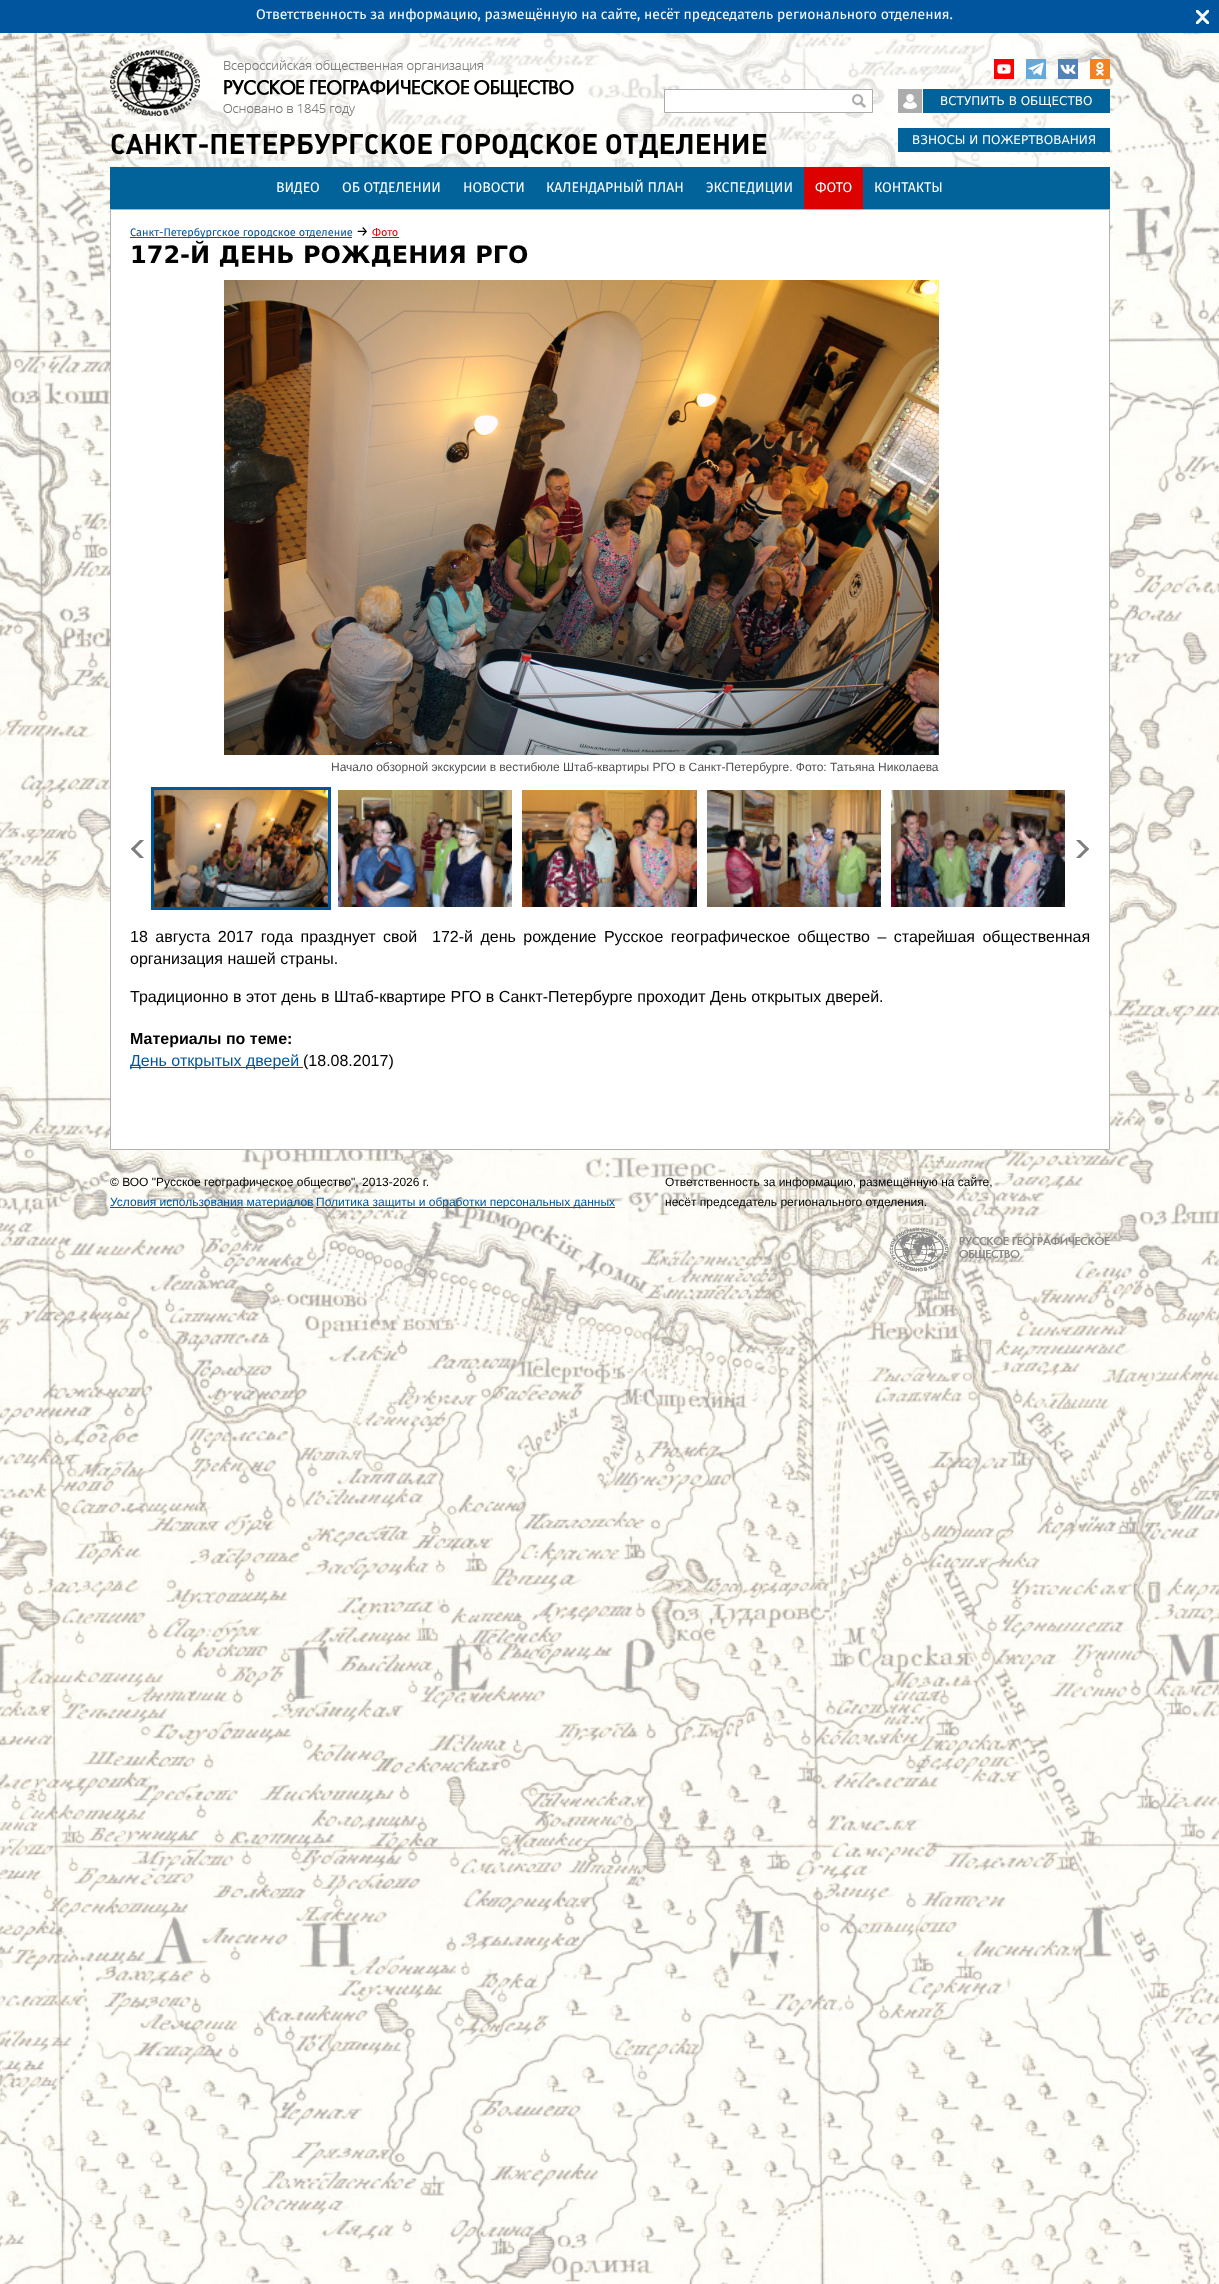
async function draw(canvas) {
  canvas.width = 1219
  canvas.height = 2284
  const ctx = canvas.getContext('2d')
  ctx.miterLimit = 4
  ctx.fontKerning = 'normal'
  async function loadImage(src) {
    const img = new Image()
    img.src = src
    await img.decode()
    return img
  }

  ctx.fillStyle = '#fff'
  ctx.fillRect(0, 0, 1219, 2284)
  ctx.drawImage(await loadImage('image0.png'), 0, 33, 1219, 2251)
  ctx.fillStyle = '#00569e'
  ctx.fillRect(0, 0, 1219, 33)
  ctx.font = '14px Fira Sans'
  ctx.fillStyle = '#fff'
  ctx.fillText('Ответственность за информацию, размещённую на сайте, несёт председатель регионального отделения.', 256, 19)
  ctx.drawImage(await loadImage('image1.png'), 1196, 10, 13, 14)
  ctx.drawImage(await loadImage('image2.png'), 110, 50, 464, 66)
  ctx.drawImage(await loadImage('image3.png'), 994, 59, 20, 20)
  ctx.drawImage(await loadImage('image4.png'), 1026, 59, 20, 20)
  ctx.drawImage(await loadImage('image5.png'), 1058, 59, 20, 20)
  ctx.drawImage(await loadImage('image6.png'), 1090, 59, 20, 20)
  ctx.beginPath()
  ctx.rect(664.5, 89.5, 208, 23)
  ctx.fill()
  ctx.strokeStyle = '#acacac'
  ctx.stroke()
  ctx.drawImage(await loadImage('image7.png'), 852, 94, 14, 14)
  ctx.fillStyle = '#acacac'
  ctx.fillRect(898, 89, 24, 24)
  ctx.drawImage(await loadImage('image8.png'), 903, 94, 14, 15)
  ctx.fillStyle = '#01639a'
  ctx.fillRect(923, 89, 187, 24)
  ctx.font = '12px DejaVu Sans'
  ctx.fillStyle = '#fff'
  ctx.fillText('ВСТУПИТЬ В ОБЩЕСТВО', 940, 105)
  ctx.fillStyle = '#01639a'
  ctx.fillRect(898, 128, 212, 24)
  ctx.fillStyle = '#fff'
  ctx.fillText('ВЗНОСЫ И ПОЖЕРТВОВАНИЯ', 912, 144)
  ctx.fillStyle = '#01639a'
  ctx.fillRect(110, 167, 1000, 42)
  ctx.font = '14px Fira Sans'
  ctx.fillStyle = '#fff'
  ctx.fillText('ВИДЕО', 276, 192)
  ctx.fillText('ОБ ОТДЕЛЕНИИ', 342, 192)
  ctx.fillText('НОВОСТИ', 463, 192)
  ctx.fillText('КАЛЕНДАРНЫЙ ПЛАН', 546, 192)
  ctx.fillText('ЭКСПЕДИЦИИ', 706, 192)
  ctx.fillStyle = '#dc0000'
  ctx.fillRect(804, 167, 59, 42)
  ctx.fillStyle = '#fff'
  ctx.fillText('ФОТО', 815, 192)
  ctx.fillText('КОНТАКТЫ', 874, 192)
  ctx.save()
  ctx.beginPath()
  ctx.rect(110, 130, 657, 28)
  ctx.clip()
  ctx.font = 'bold 28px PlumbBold'
  ctx.fillStyle = '#000'
  ctx.fillText('САНКТ-ПЕТЕРБУРГСКОЕ ГОРОДСКОЕ ОТДЕЛЕНИЕ', 110, 154)
  ctx.restore()
  ctx.beginPath()
  ctx.rect(110.5, 209.5, 999, 940)
  ctx.fill()
  ctx.strokeStyle = '#b2b2b2'
  ctx.stroke()
  ctx.fillStyle = '#00569e'
  ctx.fillRect(130, 237, 222, 1)
  ctx.font = '11px Fira Sans'
  ctx.fillText('Санкт-Петербургское городское отделение', 130, 236)
  ctx.font = '14px Fira Sans'
  ctx.fillStyle = '#000'
  ctx.fillText('→', 356, 236)
  ctx.font = '11px Fira Sans'
  ctx.fillStyle = '#e50000'
  ctx.fillText('Фото', 372, 236)
  ctx.fillRect(372, 237, 27, 1)
  ctx.font = 'bold 24px DejaVu Sans'
  ctx.fillStyle = '#000'
  ctx.fillText('172-Й ДЕНЬ РОЖДЕНИЯ РГО', 130, 263)
  ctx.drawImage(await loadImage('image9.png'), 224, 280, 715, 475)
  ctx.font = '12px Liberation Sans'
  ctx.fillStyle = '#4d4f51'
  ctx.fillText('Начало обзорной экскурсии в вестибюле Штаб-квартиры РГО в Санкт-Петербурге. Фото: Татьяна Николаева', 331, 771)
  ctx.drawImage(await loadImage('image10.png'), 131, 840, 13, 18)
  ctx.drawImage(await loadImage('image11.png'), 154, 790, 174, 117)
  ctx.strokeStyle = '#00569e'
  ctx.lineWidth = 3
  ctx.strokeRect(152.5, 788.5, 177, 120)
  ctx.drawImage(await loadImage('image12.png'), 338, 790, 174, 117)
  ctx.drawImage(await loadImage('image13.png'), 522, 790, 175, 117)
  ctx.drawImage(await loadImage('image14.png'), 707, 790, 174, 117)
  ctx.drawImage(await loadImage('image15.png'), 891, 790, 174, 117)
  ctx.drawImage(await loadImage('image16.png'), 1076, 840, 13, 18)
  ctx.wordSpacing = '3px'
  ctx.font = '16px Liberation Sans'
  ctx.fillStyle = '#000'
  ctx.fillText('18 августа 2017 года празднует свой  172-й день рождение Русское географическое общество – старейшая общественная', 130, 942)
  ctx.wordSpacing = '0px'
  ctx.fillText('организация нашей страны.', 130, 964)
  ctx.fillText('Традиционно в этот день в Штаб-квартире РГО в Санкт-Петербурге проходит День открытых дверей.', 130, 1002)
  ctx.font = 'bold 16px Liberation Sans'
  ctx.fillText('Материалы по теме:', 130, 1044)
  ctx.fillStyle = '#00569e'
  ctx.fillRect(130, 1067, 173, 1)
  ctx.font = '16px Liberation Sans'
  ctx.fillText('День открытых дверей', 130, 1066)
  ctx.fillStyle = '#000'
  ctx.fillText('(18.08.2017)', 303, 1066)
  ctx.font = '12px Liberation Sans'
  ctx.fillText('© ВОО "Русское географическое общество", 2013-2026 г.', 110, 1186)
  ctx.fillStyle = '#00569e'
  ctx.fillRect(110, 1207, 203, 1)
  ctx.fillText('Условия использования материалов', 110, 1206)
  ctx.fillRect(316, 1207, 299, 1)
  ctx.fillText('Политика защиты и обработки персональных данных', 316, 1206)
  ctx.fillStyle = '#000'
  ctx.fillText('Ответственность за информацию, размещённую на сайте,', 665, 1186)
  ctx.fillText('несёт председатель регионального отделения.', 665, 1206)
  ctx.drawImage(await loadImage('image17.png'), 889, 1227, 221, 45)
}

draw(document.querySelector('canvas'))
